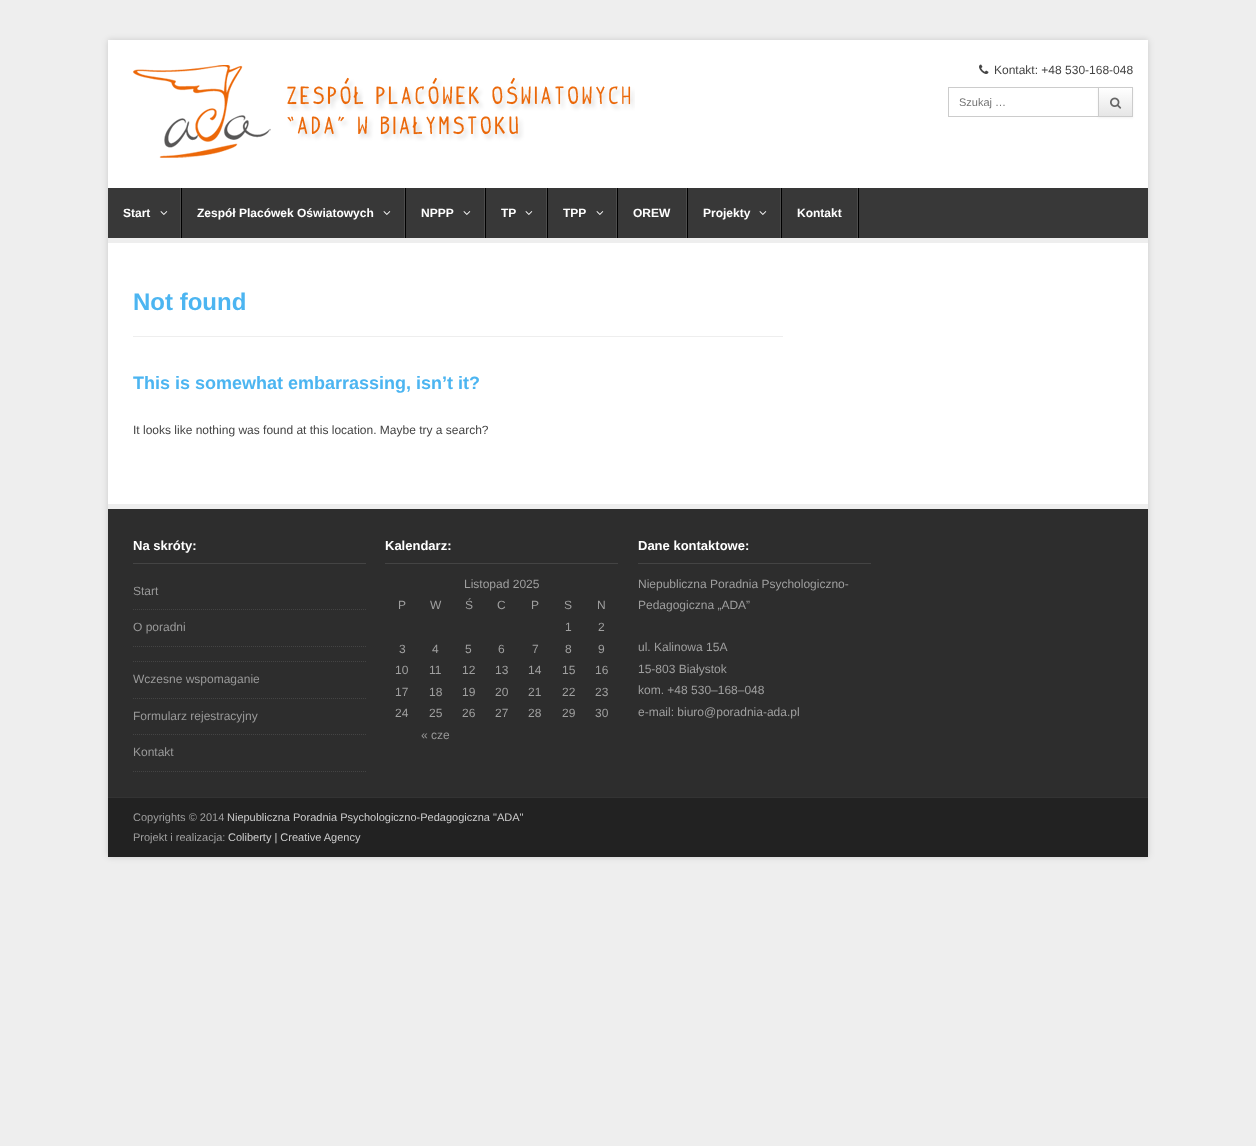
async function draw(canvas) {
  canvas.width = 1256
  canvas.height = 1146
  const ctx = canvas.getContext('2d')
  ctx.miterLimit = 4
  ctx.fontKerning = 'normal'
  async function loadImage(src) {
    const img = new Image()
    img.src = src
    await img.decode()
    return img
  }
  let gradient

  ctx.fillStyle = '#eee'
  ctx.fillRect(0, 0, 1256, 1146)
  ctx.fillStyle = '#00000026'
  ctx.filter = 'blur(3px)'
  ctx.beginPath()
  ctx.rect(108, 40, 1040, 817)
  ctx.fill()
  ctx.filter = 'none'
  ctx.fillStyle = '#fff'
  ctx.fillRect(108, 40, 1040, 464)
  ctx.drawImage(await loadImage('image0.png'), 133, 65, 502, 93)
  ctx.drawImage(await loadImage('image1.png'), 979, 64, 10, 10)
  ctx.font = '12px Liberation Sans'
  ctx.fillStyle = '#444'
  ctx.fillText('Kontakt: +48 530-168-048', 994, 74)
  ctx.fillStyle = '#ccc'
  ctx.fillRect(948, 87, 150, 1)
  ctx.fillRect(948, 116, 150, 1)
  ctx.fillRect(948, 87, 1, 30)
  ctx.font = '11px Liberation Sans'
  ctx.fillStyle = '#757575'
  ctx.fillText('Szukaj …', 959, 106)
  ctx.fillStyle = '#0000000d'
  ctx.filter = 'blur(1px)'
  ctx.beginPath()
  ctx.rect(1098, 88, 35, 30)
  ctx.fill()
  ctx.filter = 'none'
  gradient = ctx.createLinearGradient(1116, 88, 1116, 116)
  gradient.addColorStop(0, '#fff')
  gradient.addColorStop(1, '#e6e6e6')
  ctx.fillStyle = gradient
  ctx.fillRect(1099, 88, 33, 28)
  ctx.strokeStyle = '#ccc'
  ctx.strokeRect(1098.5, 87.5, 34, 29)
  ctx.drawImage(await loadImage('image2.png'), 1110, 97, 12, 12)
  ctx.fillStyle = '#383838'
  ctx.fillRect(108, 188, 1040, 50)
  ctx.fillStyle = '#eee'
  ctx.fillRect(108, 238, 1040, 5)
  ctx.fillStyle = '#000'
  ctx.fillRect(858, 188, 1, 50)
  ctx.fillStyle = '#4c4c4c'
  ctx.fillRect(180, 188, 1, 50)
  ctx.font = 'bold 12px Liberation Sans'
  ctx.fillStyle = '#fff'
  ctx.fillText('Start', 123, 217)
  ctx.drawImage(await loadImage('image3.png'), 160, 211, 8, 4)
  ctx.fillStyle = '#4c4c4c'
  ctx.fillRect(404, 188, 1, 50)
  ctx.fillStyle = '#000'
  ctx.fillRect(181, 188, 1, 50)
  ctx.fillStyle = '#fff'
  ctx.fillText('Zespół Placówek Oświatowych', 197, 217)
  ctx.drawImage(await loadImage('image3.png'), 383, 211, 8, 4)
  ctx.fillStyle = '#4c4c4c'
  ctx.fillRect(484, 188, 1, 50)
  ctx.fillStyle = '#000'
  ctx.fillRect(405, 188, 1, 50)
  ctx.fillStyle = '#fff'
  ctx.fillText('NPPP', 421, 217)
  ctx.drawImage(await loadImage('image3.png'), 463, 211, 8, 4)
  ctx.fillStyle = '#4c4c4c'
  ctx.fillRect(546, 188, 1, 50)
  ctx.fillStyle = '#000'
  ctx.fillRect(485, 188, 1, 50)
  ctx.fillStyle = '#fff'
  ctx.fillText('TP', 501, 217)
  ctx.drawImage(await loadImage('image3.png'), 525, 211, 8, 4)
  ctx.fillStyle = '#4c4c4c'
  ctx.fillRect(616, 188, 1, 50)
  ctx.fillStyle = '#000'
  ctx.fillRect(547, 188, 1, 50)
  ctx.fillStyle = '#fff'
  ctx.fillText('TPP', 563, 217)
  ctx.drawImage(await loadImage('image3.png'), 596, 211, 8, 4)
  ctx.fillStyle = '#4c4c4c'
  ctx.fillRect(686, 188, 1, 50)
  ctx.fillStyle = '#000'
  ctx.fillRect(617, 188, 1, 50)
  ctx.fillStyle = '#fff'
  ctx.fillText('OREW', 633, 217)
  ctx.fillStyle = '#4c4c4c'
  ctx.fillRect(780, 188, 1, 50)
  ctx.fillStyle = '#000'
  ctx.fillRect(687, 188, 1, 50)
  ctx.fillStyle = '#fff'
  ctx.fillText('Projekty', 703, 217)
  ctx.drawImage(await loadImage('image3.png'), 759, 211, 8, 4)
  ctx.fillStyle = '#4c4c4c'
  ctx.fillRect(857, 188, 1, 50)
  ctx.fillStyle = '#000'
  ctx.fillRect(781, 188, 1, 50)
  ctx.fillStyle = '#fff'
  ctx.fillText('Kontakt', 797, 217)
  ctx.fillStyle = '#eee'
  ctx.fillRect(133, 336, 650, 1)
  ctx.font = 'bold 24px Liberation Sans'
  ctx.fillStyle = '#4cb5f1'
  ctx.fillText('Not found', 133, 310)
  ctx.font = 'bold 18px Liberation Sans'
  ctx.fillText('This is somewhat embarrassing, isn’t it?', 133, 389)
  ctx.font = '12px Liberation Sans'
  ctx.fillStyle = '#444'
  ctx.fillText('It looks like nothing was found at this location. Maybe try a search?', 133, 434)
  ctx.fillStyle = '#2d2d2d'
  ctx.fillRect(108, 509, 1040, 288)
  ctx.fillStyle = '#eee'
  ctx.fillRect(108, 504, 1040, 5)
  ctx.fillStyle = '#444'
  ctx.fillRect(133, 563, 233, 1)
  ctx.font = 'bold 13px Liberation Sans'
  ctx.fillStyle = '#fff'
  ctx.fillText('Na skróty:', 133, 550)
  ctx.beginPath()
  ctx.moveTo(133, 609.5)
  ctx.lineTo(366, 609.5)
  ctx.strokeStyle = '#444'
  ctx.setLineDash([1, 1])
  ctx.stroke()
  ctx.font = '12px Liberation Sans'
  ctx.fillStyle = '#999'
  ctx.fillText('Start', 133, 595)
  ctx.beginPath()
  ctx.moveTo(133, 646.5)
  ctx.lineTo(366, 646.5)
  ctx.stroke()
  ctx.fillText('O poradni', 133, 631)
  ctx.beginPath()
  ctx.moveTo(133, 661.5)
  ctx.lineTo(366, 661.5)
  ctx.stroke()
  ctx.beginPath()
  ctx.moveTo(133, 698.5)
  ctx.lineTo(366, 698.5)
  ctx.stroke()
  ctx.fillText('Wczesne wspomaganie', 133, 683)
  ctx.beginPath()
  ctx.moveTo(133, 734.5)
  ctx.lineTo(366, 734.5)
  ctx.stroke()
  ctx.fillText('Formularz rejestracyjny', 133, 720)
  ctx.beginPath()
  ctx.moveTo(133, 771.5)
  ctx.lineTo(366, 771.5)
  ctx.stroke()
  ctx.fillText('Kontakt', 133, 756)
  ctx.fillStyle = '#444'
  ctx.fillRect(385, 563, 233, 1)
  ctx.font = 'bold 13px Liberation Sans'
  ctx.fillStyle = '#fff'
  ctx.fillText('Kalendarz:', 385, 550)
  ctx.font = '12px Liberation Sans'
  ctx.fillStyle = '#9f9f9f'
  ctx.fillText('Listopad 2025', 464, 588)
  ctx.fillText('P', 398, 609)
  ctx.fillText('W', 430, 609)
  ctx.fillText('Ś', 465, 609)
  ctx.fillText('C', 497, 609)
  ctx.fillText('P', 531, 609)
  ctx.fillText('S', 564, 609)
  ctx.fillText('N', 597, 609)
  ctx.fillText('1', 565, 631)
  ctx.fillText('2', 598, 631)
  ctx.fillText('3', 399, 653)
  ctx.fillText('4', 432, 653)
  ctx.fillText('5', 465, 653)
  ctx.fillText('6', 498, 653)
  ctx.fillText('7', 532, 653)
  ctx.fillText('8', 565, 653)
  ctx.fillText('9', 598, 653)
  ctx.fillText('10', 395, 674)
  ctx.fillText('11', 429, 674)
  ctx.fillText('12', 462, 674)
  ctx.fillText('13', 495, 674)
  ctx.fillText('14', 528, 674)
  ctx.fillText('15', 562, 674)
  ctx.fillText('16', 595, 674)
  ctx.fillText('17', 395, 696)
  ctx.fillText('18', 429, 696)
  ctx.fillText('19', 462, 696)
  ctx.fillText('20', 495, 696)
  ctx.fillText('21', 528, 696)
  ctx.fillText('22', 562, 696)
  ctx.fillText('23', 595, 696)
  ctx.fillText('24', 395, 717)
  ctx.fillText('25', 429, 717)
  ctx.fillText('26', 462, 717)
  ctx.fillText('27', 495, 717)
  ctx.fillText('28', 528, 717)
  ctx.fillText('29', 562, 717)
  ctx.fillText('30', 595, 717)
  ctx.fillStyle = '#999'
  ctx.fillText('« cze', 421, 739)
  ctx.fillStyle = '#444'
  ctx.fillRect(638, 563, 233, 1)
  ctx.font = 'bold 13px Liberation Sans'
  ctx.fillStyle = '#fff'
  ctx.fillText('Dane kontaktowe:', 638, 550)
  ctx.font = '12px Liberation Sans'
  ctx.fillStyle = '#9f9f9f'
  ctx.fillText('Niepubliczna Poradnia Psychologiczno-', 638, 588)
  ctx.fillText('Pedagogiczna „ADA”', 638, 609)
  ctx.fillText('ul. Kalinowa 15A', 638, 651)
  ctx.fillText('15-803 Białystok', 638, 673)
  ctx.fillText('kom. +48 530–168–048', 638, 694)
  ctx.fillText('e-mail: biuro@poradnia-ada.pl', 638, 716)
  ctx.fillStyle = '#222'
  ctx.fillRect(108, 798, 1040, 59)
  ctx.fillStyle = '#333'
  ctx.fillRect(108, 797, 1040, 1)
  ctx.font = '11px Liberation Sans'
  ctx.fillStyle = '#9f9f9f'
  ctx.fillText('Copyrights © 2014', 133, 821)
  ctx.fillStyle = '#ccc'
  ctx.fillText('Niepubliczna Poradnia Psychologiczno-Pedagogiczna "ADA"', 227, 821)
  ctx.fillStyle = '#9f9f9f'
  ctx.fillText('Projekt i realizacja:', 133, 841)
  ctx.fillStyle = '#ccc'
  ctx.fillText('Coliberty | Creative Agency', 228, 841)
}

draw(document.querySelector('canvas'))
